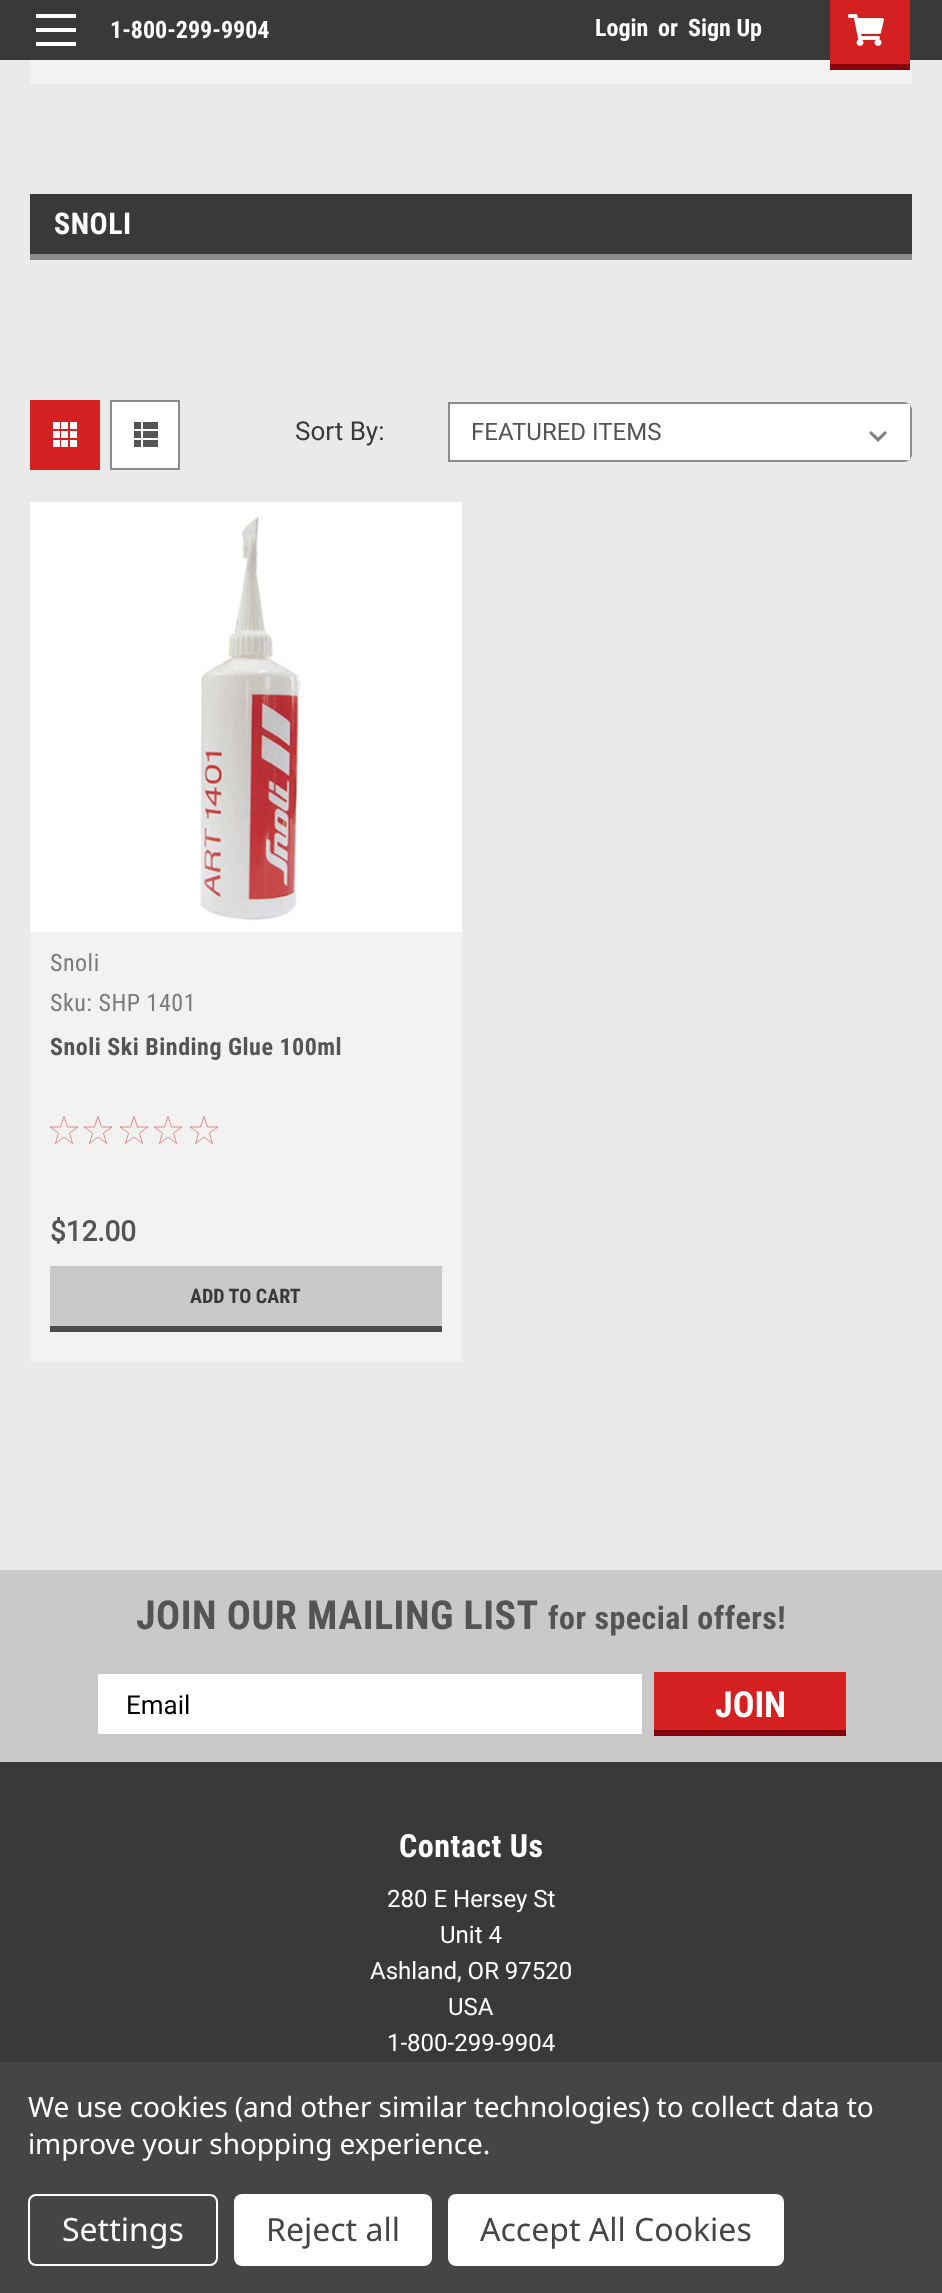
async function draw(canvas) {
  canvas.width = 942
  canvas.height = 2293
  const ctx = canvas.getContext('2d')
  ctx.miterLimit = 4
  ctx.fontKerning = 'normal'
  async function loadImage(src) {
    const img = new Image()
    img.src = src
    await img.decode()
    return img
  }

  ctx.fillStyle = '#eaeaea'
  ctx.fillRect(0, 0, 942, 2293)
  ctx.fillStyle = '#393939'
  ctx.fillRect(0, 0, 942, 60)
  ctx.fillStyle = '#fff'
  ctx.fillRect(36, 28, 40, 4)
  ctx.fillRect(36, 14, 40, 4)
  ctx.fillRect(36, 42, 40, 4)
  ctx.font = 'bold 24px Roboto Condensed'
  ctx.fillText('1-800-299-9904', 110, 38)
  ctx.fillText('Login', 595, 36)
  ctx.fillText('or', 658, 36)
  ctx.fillText('Sign Up', 688, 36)
  ctx.fillStyle = '#f2f2f2'
  ctx.fillRect(30, 60, 882, 24)
  ctx.fillStyle = '#d42020'
  ctx.fillRect(830, 0, 80, 64)
  ctx.fillStyle = '#860109'
  ctx.fillRect(830, 64, 80, 6)
  ctx.drawImage(await loadImage('image0.png'), 848, 13, 36, 33)
  ctx.fillStyle = '#393939'
  ctx.fillRect(30, 194, 882, 60)
  ctx.fillStyle = '#8b8b8b'
  ctx.fillRect(30, 254, 882, 6)
  ctx.letterSpacing = '0.5px'
  ctx.font = 'bold 30px Roboto Condensed'
  ctx.fillStyle = '#fff'
  ctx.fillText('SNOLI', 54, 234)
  ctx.fillStyle = '#d42020'
  ctx.fillRect(30, 400, 70, 70)
  ctx.drawImage(await loadImage('image1.png'), 53, 422, 24, 25)
  ctx.fillStyle = '#fff'
  ctx.beginPath()
  ctx.rect(111, 401, 68, 68)
  ctx.fill()
  ctx.strokeStyle = '#8b8b8b'
  ctx.lineWidth = 2
  ctx.stroke()
  ctx.drawImage(await loadImage('image2.png'), 134, 422, 24, 25)
  ctx.letterSpacing = '0px'
  ctx.font = '26px Roboto'
  ctx.fillStyle = '#393939'
  ctx.fillText('Sort By:', 295, 440)
  ctx.fillStyle = '#fff'
  ctx.beginPath()
  ctx.roundRect(448, 402, 464, 60, [0, 8, 8, 0])
  ctx.fill()
  ctx.fillStyle = '#828282'
  ctx.beginPath()
  ctx.moveTo(885, 431)
  ctx.lineTo(878, 437.5)
  ctx.lineTo(871, 431)
  ctx.lineTo(869, 433)
  ctx.lineTo(878, 442)
  ctx.lineTo(887, 433)
  ctx.closePath()
  ctx.fill()
  ctx.fillStyle = '#8b8b8b'
  ctx.beginPath()
  ctx.moveTo(448, 402)
  ctx.lineTo(448, 462)
  ctx.lineTo(904, 462)
  ctx.bezierCurveTo(906, 462, 908, 461, 909, 460)
  ctx.lineTo(450, 460)
  ctx.lineTo(450, 404)
  ctx.lineTo(909, 404)
  ctx.bezierCurveTo(908, 403, 906, 402, 904, 402)
  ctx.closePath()
  ctx.moveTo(912, 410)
  ctx.bezierCurveTo(912, 408, 911, 406, 910, 405)
  ctx.lineTo(910, 459)
  ctx.bezierCurveTo(911, 458, 912, 456, 912, 454)
  ctx.closePath()
  ctx.fill('evenodd')
  ctx.font = '24px Roboto'
  ctx.fillStyle = '#545454'
  ctx.fillText('FEATURED ITEMS', 471, 440)
  ctx.fillStyle = '#f2f2f2'
  ctx.fillRect(30, 932, 432, 430)
  ctx.fillStyle = '#fff'
  ctx.fillRect(30, 502, 432, 430)
  ctx.drawImage(await loadImage('image3.png'), 200, 517, 101, 405)
  ctx.letterSpacing = '0.5px'
  ctx.font = '24px Roboto Condensed'
  ctx.fillStyle = '#7b7b7b'
  ctx.fillText('Snoli', 50, 971)
  ctx.fillText('Sku: SHP 1401', 50, 1011)
  ctx.font = 'bold 24px Roboto Condensed'
  ctx.fillStyle = '#545454'
  ctx.fillText('Snoli Ski Binding Glue 100ml', 50, 1055)
  ctx.save()
  ctx.beginPath()
  ctx.rect(50, 1116, 28, 28)
  ctx.clip()
  ctx.beginPath()
  ctx.moveTo(64, 1116.5)
  ctx.lineTo(67.5, 1127)
  ctx.lineTo(78, 1127)
  ctx.lineTo(69.5, 1133)
  ctx.lineTo(72.5, 1143.5)
  ctx.lineTo(64, 1137)
  ctx.lineTo(55.5, 1143.5)
  ctx.lineTo(58.5, 1133)
  ctx.lineTo(50, 1127)
  ctx.lineTo(60.5, 1127)
  ctx.closePath()
  ctx.strokeStyle = '#d42020'
  ctx.lineWidth = 0.5
  ctx.stroke()
  ctx.restore()
  ctx.save()
  ctx.beginPath()
  ctx.rect(84, 1116, 28, 28)
  ctx.clip()
  ctx.beginPath()
  ctx.moveTo(98, 1116.5)
  ctx.lineTo(101.5, 1127)
  ctx.lineTo(112, 1127)
  ctx.lineTo(103.5, 1133)
  ctx.lineTo(106.5, 1143.5)
  ctx.lineTo(98, 1137)
  ctx.lineTo(89.5, 1143.5)
  ctx.lineTo(92.5, 1133)
  ctx.lineTo(84, 1127)
  ctx.lineTo(94.5, 1127)
  ctx.closePath()
  ctx.strokeStyle = '#d42020'
  ctx.lineWidth = 0.5
  ctx.stroke()
  ctx.restore()
  ctx.save()
  ctx.beginPath()
  ctx.rect(120, 1116, 28, 28)
  ctx.clip()
  ctx.beginPath()
  ctx.moveTo(134, 1116.5)
  ctx.lineTo(137.5, 1127)
  ctx.lineTo(148, 1127)
  ctx.lineTo(139.5, 1133)
  ctx.lineTo(142.5, 1143.5)
  ctx.lineTo(134, 1137)
  ctx.lineTo(125.5, 1143.5)
  ctx.lineTo(128.5, 1133)
  ctx.lineTo(120, 1127)
  ctx.lineTo(130.5, 1127)
  ctx.closePath()
  ctx.strokeStyle = '#d42020'
  ctx.lineWidth = 0.5
  ctx.stroke()
  ctx.restore()
  ctx.save()
  ctx.beginPath()
  ctx.rect(154, 1116, 28, 28)
  ctx.clip()
  ctx.beginPath()
  ctx.moveTo(168, 1116.5)
  ctx.lineTo(171.5, 1127)
  ctx.lineTo(182, 1127)
  ctx.lineTo(173.5, 1133)
  ctx.lineTo(176.5, 1143.5)
  ctx.lineTo(168, 1137)
  ctx.lineTo(159.5, 1143.5)
  ctx.lineTo(162.5, 1133)
  ctx.lineTo(154, 1127)
  ctx.lineTo(164.5, 1127)
  ctx.closePath()
  ctx.strokeStyle = '#d42020'
  ctx.lineWidth = 0.5
  ctx.stroke()
  ctx.restore()
  ctx.save()
  ctx.beginPath()
  ctx.rect(190, 1116, 28, 28)
  ctx.clip()
  ctx.beginPath()
  ctx.moveTo(204, 1116.5)
  ctx.lineTo(207.5, 1127)
  ctx.lineTo(218, 1127)
  ctx.lineTo(209.5, 1133)
  ctx.lineTo(212.5, 1143.5)
  ctx.lineTo(204, 1137)
  ctx.lineTo(195.5, 1143.5)
  ctx.lineTo(198.5, 1133)
  ctx.lineTo(190, 1127)
  ctx.lineTo(200.5, 1127)
  ctx.closePath()
  ctx.strokeStyle = '#d42020'
  ctx.lineWidth = 0.5
  ctx.stroke()
  ctx.restore()
  ctx.letterSpacing = '0px'
  ctx.font = 'bold 28px Roboto'
  ctx.fillText('$12.00', 50, 1241)
  ctx.fillStyle = '#cac9c9'
  ctx.fillRect(50, 1266, 392, 60)
  ctx.fillStyle = '#4c4c4c'
  ctx.fillRect(50, 1326, 392, 6)
  ctx.font = 'bold 20px Roboto Condensed'
  ctx.fillStyle = '#393939'
  ctx.fillText('ADD TO CART', 190, 1303)
  ctx.fillRect(0, 1762, 942, 300)
  ctx.fillStyle = '#cac9c9'
  ctx.fillRect(0, 1570, 942, 192)
  ctx.letterSpacing = '0.5px'
  ctx.font = 'bold 40px Roboto Condensed'
  ctx.fillStyle = '#545454'
  ctx.fillText('JOIN OUR MAILING LIST', 136, 1629)
  ctx.font = 'bold 32px Roboto Condensed'
  ctx.fillText('for special offers!', 548, 1629)
  ctx.fillStyle = '#fff'
  ctx.fillRect(98, 1674, 544, 60)
  ctx.letterSpacing = '0px'
  ctx.font = '26px Roboto'
  ctx.fillStyle = '#000'
  ctx.fillText('Email', 126, 1714)
  ctx.fillStyle = '#d42020'
  ctx.fillRect(654, 1672, 192, 58)
  ctx.fillStyle = '#860109'
  ctx.fillRect(654, 1730, 192, 6)
  ctx.font = 'bold 36px Roboto Condensed'
  ctx.fillStyle = '#fff'
  ctx.fillText('JOIN', 715, 1717)
  ctx.letterSpacing = '0.5px'
  ctx.font = 'bold 32px Roboto Condensed'
  ctx.fillText('Contact Us', 399, 1857)
  ctx.letterSpacing = '0px'
  ctx.font = '24px Roboto'
  ctx.fillText('280 E Hersey St', 387, 1907)
  ctx.fillText('Unit 4', 440, 1943)
  ctx.fillText('Ashland, OR 97520', 370, 1979)
  ctx.fillText('USA', 448, 2015)
  ctx.fillText('1-800-299-9904', 387, 2051)
  ctx.fillStyle = '#454545'
  ctx.fillRect(0, 2062, 942, 231)
  ctx.letterSpacing = '-0.1px'
  ctx.font = '28px Noto Sans'
  ctx.fillStyle = '#fff'
  ctx.fillText('We use cookies (and other similar technologies) to collect data to', 28, 2117)
  ctx.fillText('improve your shopping experience.', 28, 2154)
  ctx.beginPath()
  ctx.roundRect(29, 2195, 188, 70, 7)
  ctx.strokeStyle = '#fff'
  ctx.stroke()
  ctx.letterSpacing = '0px'
  ctx.font = '32px Noto Sans'
  ctx.fillText('Settings', 62, 2241)
  ctx.beginPath()
  ctx.roundRect(234, 2194, 198, 72, 8)
  ctx.fill()
  ctx.fillStyle = '#454545'
  ctx.fillText('Reject all', 266, 2241)
  ctx.fillStyle = '#fff'
  ctx.beginPath()
  ctx.roundRect(448, 2194, 336, 72, 8)
  ctx.fill()
  ctx.fillStyle = '#454545'
  ctx.fillText('Accept All Cookies', 480, 2241)
}

draw(document.querySelector('canvas'))
